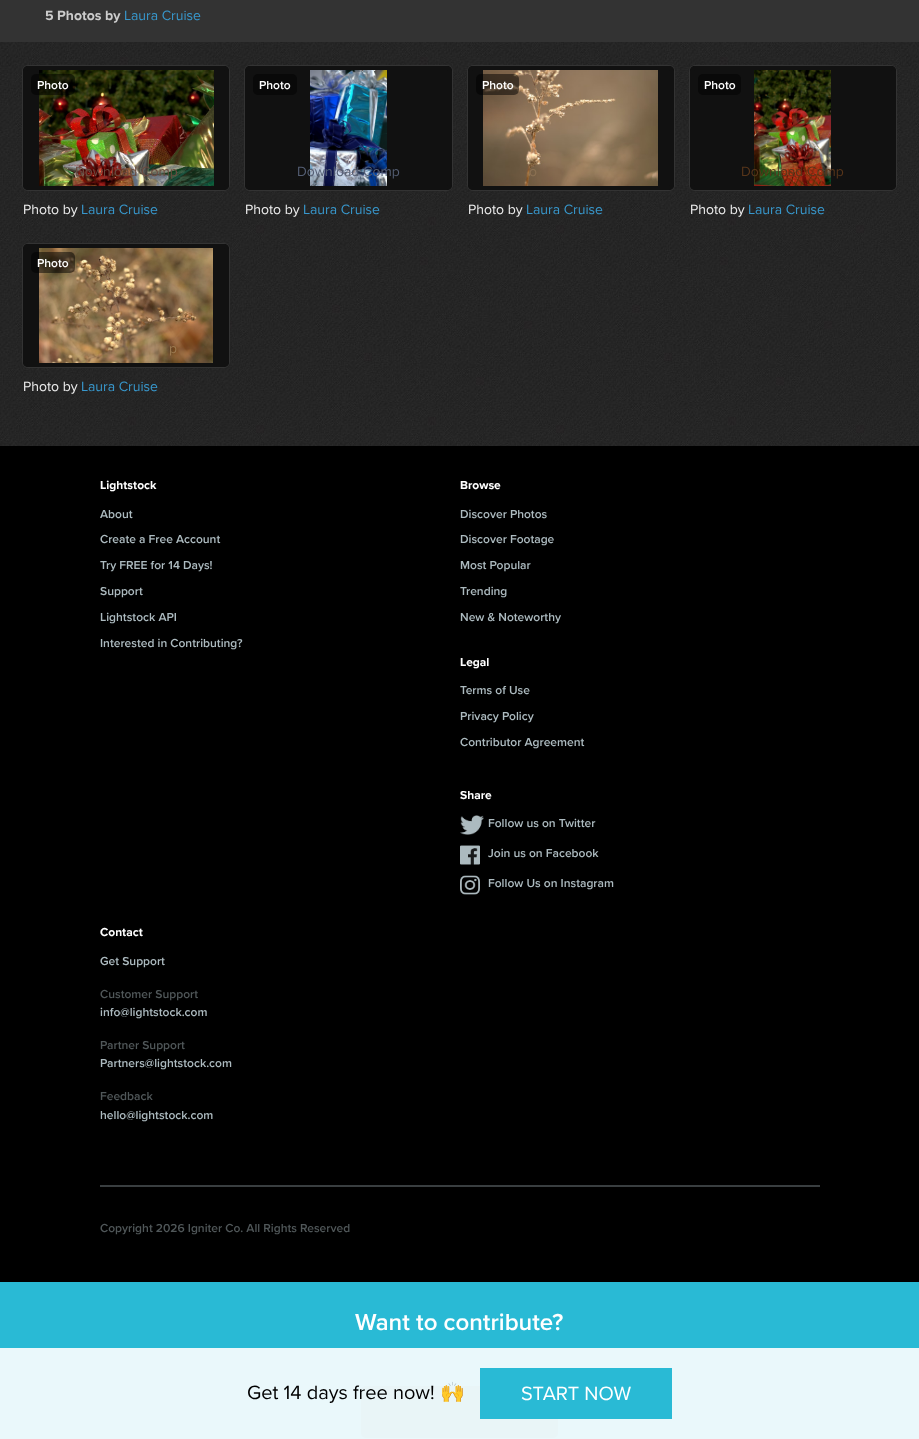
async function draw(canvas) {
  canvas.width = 919
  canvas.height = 1439
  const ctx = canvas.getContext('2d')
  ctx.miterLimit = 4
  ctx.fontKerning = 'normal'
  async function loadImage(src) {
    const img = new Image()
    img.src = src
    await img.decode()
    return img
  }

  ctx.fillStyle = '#fff'
  ctx.fillRect(0, 0, 919, 1439)
  ctx.drawImage(await loadImage('image0.png'), 0, 42, 919, 404)
  ctx.fillStyle = '#333'
  ctx.fillRect(0, 0, 919, 42)
  ctx.font = 'bold 14px Proxima Nova'
  ctx.fillStyle = '#ccc'
  ctx.fillText('5 Photos by', 45, 20)
  ctx.font = '14px Proxima Nova'
  ctx.fillStyle = '#3898cd'
  ctx.fillText('Laura Cruise', 124, 20)
  ctx.beginPath()
  ctx.roundRect(22.5, 65.5, 207, 125, 5.5)
  ctx.strokeStyle = '#333'
  ctx.stroke()
  ctx.fillStyle = '#111'
  ctx.beginPath()
  ctx.roundRect(23, 66, 206, 124, 5)
  ctx.fill()
  ctx.drawImage(await loadImage('image1.png'), 39, 70, 175, 116)
  ctx.beginPath()
  ctx.roundRect(25, 68, 202, 120, 3)
  ctx.strokeStyle = '#111'
  ctx.lineWidth = 4
  ctx.stroke()
  ctx.fillStyle = '#00000080'
  ctx.beginPath()
  ctx.roundRect(31, 74, 44, 21, 5)
  ctx.fill()
  ctx.font = '600 12px Proxima Nova'
  ctx.fillStyle = '#fff'
  ctx.fillText('Photo', 37, 89)
  ctx.font = '14px Proxima Nova'
  ctx.fillStyle = '#6a4b3f'
  ctx.fillText('Download Comp', 75, 176)
  ctx.fillStyle = '#eee'
  ctx.fillText('Photo by', 23, 214)
  ctx.fillStyle = '#3898cd'
  ctx.fillText('Laura Cruise', 81, 214)
  ctx.beginPath()
  ctx.roundRect(244.5, 65.5, 208, 125, 5.5)
  ctx.strokeStyle = '#333'
  ctx.lineWidth = 1
  ctx.stroke()
  ctx.fillStyle = '#111'
  ctx.beginPath()
  ctx.roundRect(245, 66, 207, 124, 5)
  ctx.fill()
  ctx.drawImage(await loadImage('image2.png'), 310, 70, 77, 116)
  ctx.beginPath()
  ctx.roundRect(247, 68, 203, 120, 3)
  ctx.strokeStyle = '#111'
  ctx.lineWidth = 4
  ctx.stroke()
  ctx.fillStyle = '#090909'
  ctx.beginPath()
  ctx.roundRect(253, 74, 44, 21, 5)
  ctx.fill()
  ctx.font = '600 12px Proxima Nova'
  ctx.fillStyle = '#fff'
  ctx.fillText('Photo', 259, 89)
  ctx.font = '14px Proxima Nova'
  ctx.fillStyle = '#545e73'
  ctx.fillText('Download Comp', 297, 176)
  ctx.fillStyle = '#eee'
  ctx.fillText('Photo by', 245, 214)
  ctx.fillStyle = '#3898cd'
  ctx.fillText('Laura Cruise', 303, 214)
  ctx.beginPath()
  ctx.roundRect(467.5, 65.5, 207, 125, 5.5)
  ctx.strokeStyle = '#333'
  ctx.lineWidth = 1
  ctx.stroke()
  ctx.fillStyle = '#111'
  ctx.beginPath()
  ctx.roundRect(468, 66, 206, 124, 5)
  ctx.fill()
  ctx.drawImage(await loadImage('image3.png'), 483, 70, 175, 116)
  ctx.beginPath()
  ctx.roundRect(470, 68, 202, 120, 3)
  ctx.strokeStyle = '#111'
  ctx.lineWidth = 4
  ctx.stroke()
  ctx.fillStyle = '#00000080'
  ctx.beginPath()
  ctx.roundRect(476, 74, 43, 21, 5)
  ctx.fill()
  ctx.font = '600 12px Proxima Nova'
  ctx.fillStyle = '#fff'
  ctx.fillText('Photo', 482, 89)
  ctx.font = '14px Proxima Nova'
  ctx.fillStyle = '#8c7153'
  ctx.fillText('o', 529, 176)
  ctx.fillStyle = '#eee'
  ctx.fillText('Photo by', 468, 214)
  ctx.fillStyle = '#3898cd'
  ctx.fillText('Laura Cruise', 526, 214)
  ctx.beginPath()
  ctx.roundRect(689.5, 65.5, 207, 125, 5.5)
  ctx.strokeStyle = '#333'
  ctx.lineWidth = 1
  ctx.stroke()
  ctx.fillStyle = '#111'
  ctx.beginPath()
  ctx.roundRect(690, 66, 206, 124, 5)
  ctx.fill()
  ctx.drawImage(await loadImage('image4.png'), 754, 70, 77, 116)
  ctx.beginPath()
  ctx.roundRect(692, 68, 202, 120, 3)
  ctx.strokeStyle = '#111'
  ctx.lineWidth = 4
  ctx.stroke()
  ctx.fillStyle = '#090909'
  ctx.beginPath()
  ctx.roundRect(698, 74, 43, 21, 5)
  ctx.fill()
  ctx.font = '600 12px Proxima Nova'
  ctx.fillStyle = '#fff'
  ctx.fillText('Photo', 704, 89)
  ctx.font = '14px Proxima Nova'
  ctx.fillStyle = '#57351a'
  ctx.fillText('Download Comp', 741, 176)
  ctx.fillStyle = '#eee'
  ctx.fillText('Photo by', 690, 214)
  ctx.fillStyle = '#3898cd'
  ctx.fillText('Laura Cruise', 748, 214)
  ctx.beginPath()
  ctx.roundRect(22.5, 243.5, 207, 124, 5.5)
  ctx.strokeStyle = '#333'
  ctx.lineWidth = 1
  ctx.stroke()
  ctx.fillStyle = '#111'
  ctx.beginPath()
  ctx.roundRect(23, 244, 206, 123, 5)
  ctx.fill()
  ctx.drawImage(await loadImage('image5.png'), 39, 248, 174, 115)
  ctx.beginPath()
  ctx.roundRect(25, 246, 202, 119, 3)
  ctx.strokeStyle = '#111'
  ctx.lineWidth = 4
  ctx.stroke()
  ctx.fillStyle = '#00000080'
  ctx.beginPath()
  ctx.roundRect(31, 252, 44, 21, 5)
  ctx.fill()
  ctx.font = '600 12px Proxima Nova'
  ctx.fillStyle = '#fff'
  ctx.fillText('Photo', 37, 267)
  ctx.font = '14px Proxima Nova'
  ctx.fillStyle = '#9c7a51'
  ctx.fillText('p', 169, 353)
  ctx.fillStyle = '#eee'
  ctx.fillText('Photo by', 23, 391)
  ctx.fillStyle = '#3898cd'
  ctx.fillText('Laura Cruise', 81, 391)
  ctx.fillStyle = '#000'
  ctx.fillRect(0, 446, 919, 836)
  ctx.font = 'bold 12px Proxima Nova'
  ctx.fillStyle = '#fff'
  ctx.fillText('Lightstock', 100, 489)
  ctx.font = '600 12px Proxima Nova'
  ctx.fillStyle = '#acbabf'
  ctx.fillText('About', 100, 518)
  ctx.fillText('Create a Free Account', 100, 543)
  ctx.fillText('Try FREE for 14 Days!', 100, 569)
  ctx.fillText('Support', 100, 595)
  ctx.fillText('Lightstock API', 100, 621)
  ctx.fillText('Interested in Contributing?', 100, 647)
  ctx.font = 'bold 12px Proxima Nova'
  ctx.fillStyle = '#fff'
  ctx.fillText('Browse', 460, 489)
  ctx.font = '600 12px Proxima Nova'
  ctx.fillStyle = '#acbabf'
  ctx.fillText('Discover Photos', 460, 518)
  ctx.fillText('Discover Footage', 460, 543)
  ctx.fillText('Most Popular', 460, 569)
  ctx.fillText('Trending', 460, 595)
  ctx.fillText('New & Noteworthy', 460, 621)
  ctx.font = 'bold 12px Proxima Nova'
  ctx.fillStyle = '#fff'
  ctx.fillText('Legal', 460, 666)
  ctx.font = '600 12px Proxima Nova'
  ctx.fillStyle = '#acbabf'
  ctx.fillText('Terms of Use', 460, 694)
  ctx.fillText('Privacy Policy', 460, 720)
  ctx.fillText('Contributor Agreement', 460, 746)
  ctx.font = 'bold 12px Proxima Nova'
  ctx.fillStyle = '#fff'
  ctx.fillText('Share', 460, 799)
  ctx.drawImage(await loadImage('image6.png'), 460, 815, 24, 20)
  ctx.font = '600 12px Proxima Nova'
  ctx.fillStyle = '#acbabf'
  ctx.fillText('Follow us on Twitter', 488, 827)
  ctx.drawImage(await loadImage('image7.png'), 460, 845, 20, 20)
  ctx.fillText('Join us on Facebook', 488, 857)
  ctx.drawImage(await loadImage('image8.png'), 460, 875, 20, 20)
  ctx.fillText('Follow Us on Instagram', 488, 887)
  ctx.font = 'bold 12px Proxima Nova'
  ctx.fillStyle = '#fff'
  ctx.fillText('Contact', 100, 936)
  ctx.font = '600 12px Proxima Nova'
  ctx.fillStyle = '#acbabf'
  ctx.fillText('Get Support', 100, 965)
  ctx.fillStyle = '#505759'
  ctx.fillText('Customer Support', 100, 998)
  ctx.fillStyle = '#acbabf'
  ctx.fillText('info@lightstock.com', 100, 1016)
  ctx.fillStyle = '#505759'
  ctx.fillText('Partner Support', 100, 1049)
  ctx.fillStyle = '#acbabf'
  ctx.fillText('Partners@lightstock.com', 100, 1067)
  ctx.fillStyle = '#505759'
  ctx.fillText('Feedback', 100, 1100)
  ctx.fillStyle = '#acbabf'
  ctx.fillText('hello@lightstock.com', 100, 1119)
  ctx.fillStyle = '#393e40'
  ctx.fillRect(100, 1185, 720, 2)
  ctx.fillStyle = '#505759'
  ctx.fillText('Copyright 2026 Igniter Co. All Rights Reserved', 100, 1232)
  ctx.fillStyle = '#29bad5'
  ctx.fillRect(0, 1282, 919, 157)
  ctx.font = '600 24px Proxima Nova'
  ctx.fillStyle = '#fff'
  ctx.fillText('Want to contribute?', 355, 1330)
  ctx.fillStyle = '#2195aa'
  ctx.beginPath()
  ctx.roundRect(361, 1386, 197, 52, 5)
  ctx.fill()
  ctx.fillStyle = '#ffffffe6'
  ctx.fillRect(0, 1348, 919, 91)
  ctx.font = '20px Proxima Nova'
  ctx.fillStyle = '#000'
  ctx.fillText('Get 14 days free now!', 247, 1399)
  ctx.font = '20px Noto Color Emoji'
  ctx.fillText('🙌', 440, 1399)
  ctx.fillStyle = '#29bad5'
  ctx.fillRect(480, 1368, 192, 51)
  ctx.font = '20px Proxima Nova'
  ctx.fillStyle = '#fff'
  ctx.fillText('START NOW', 521, 1400)
}

draw(document.querySelector('canvas'))
